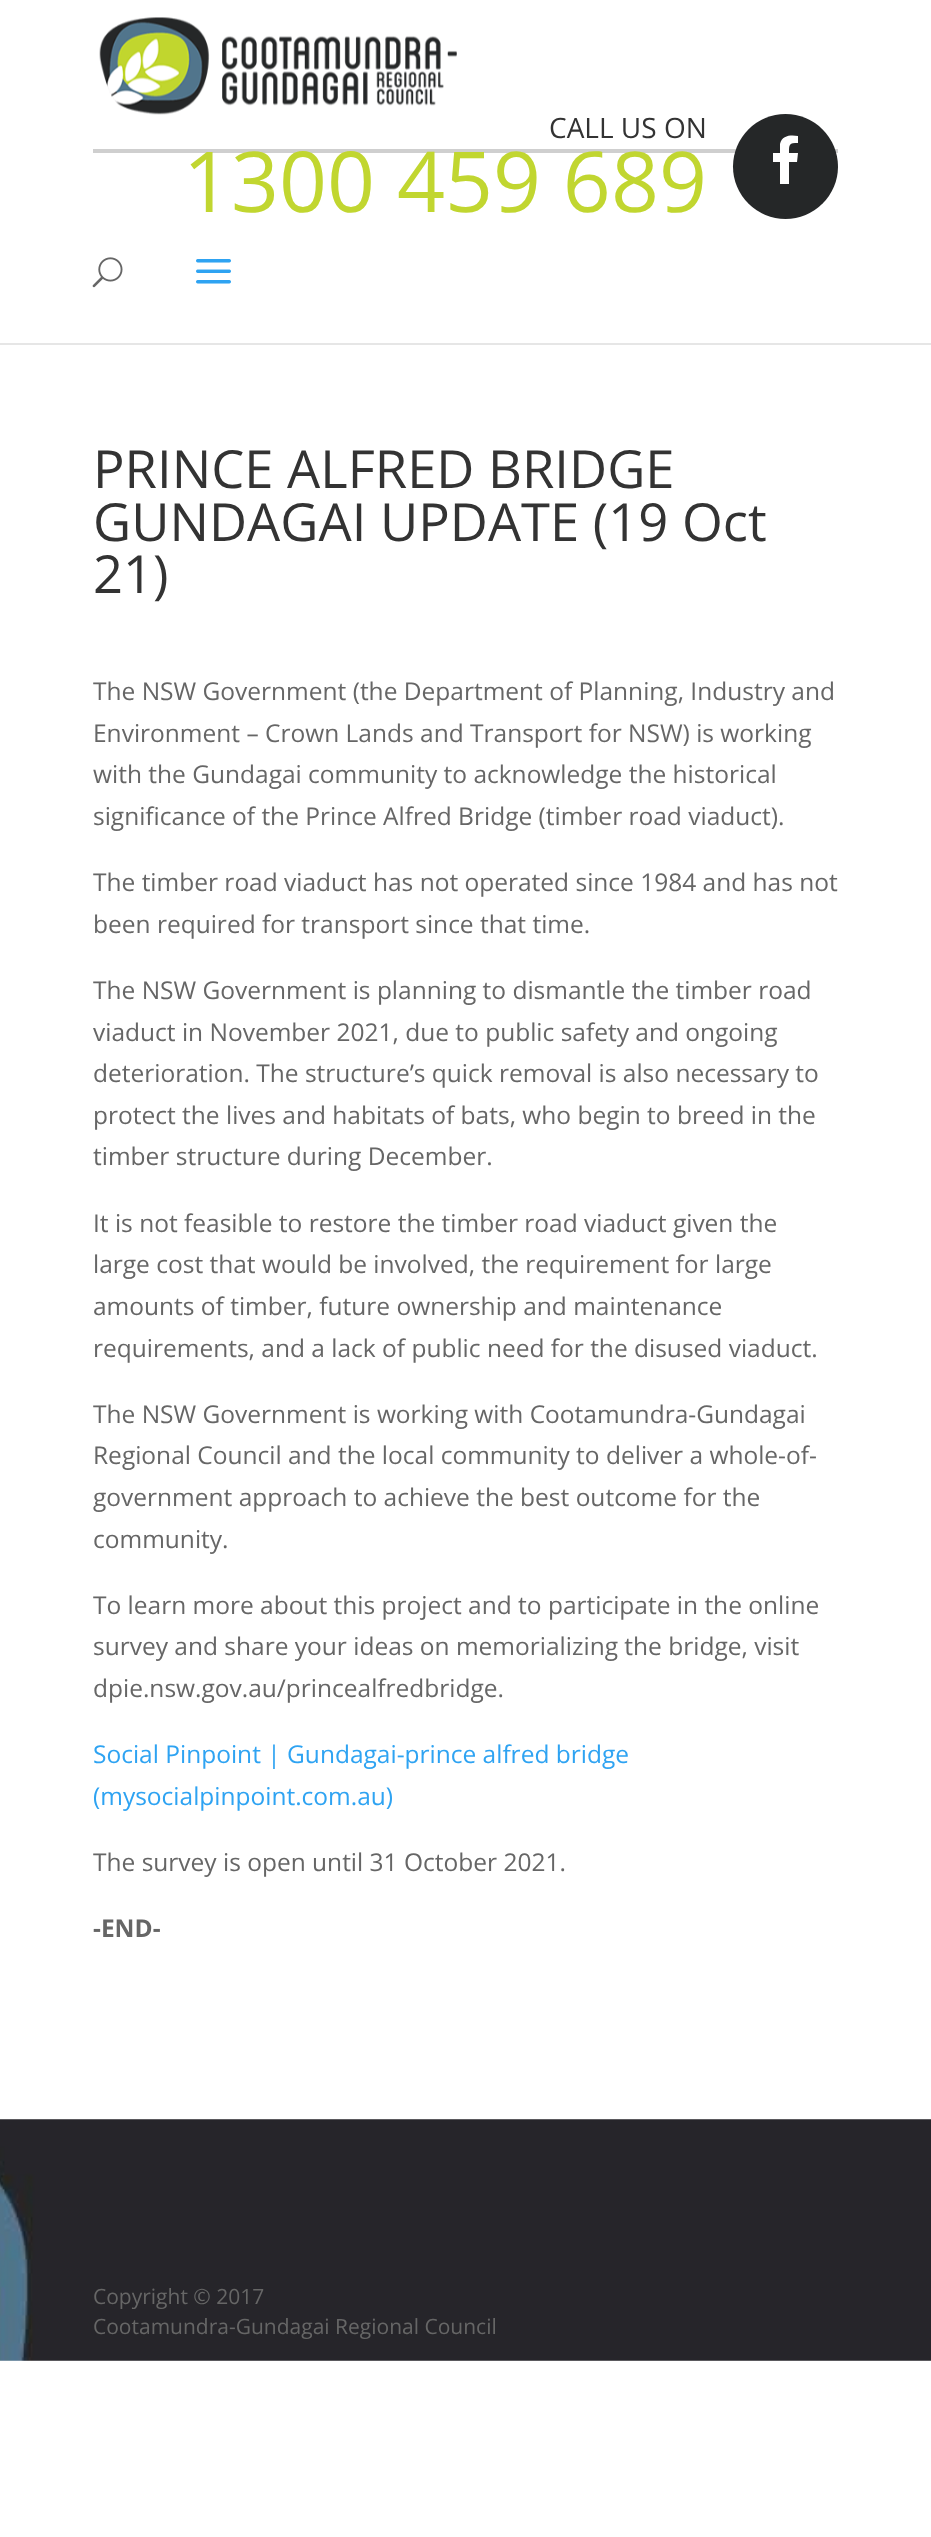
async function draw(canvas) {
  canvas.width = 931
  canvas.height = 2537
  const ctx = canvas.getContext('2d')
  ctx.miterLimit = 4
  ctx.fontKerning = 'normal'
  async function loadImage(src) {
    const img = new Image()
    img.src = src
    await img.decode()
    return img
  }

  ctx.fillStyle = '#fff'
  ctx.fillRect(0, 0, 931, 2537)
  ctx.fillStyle = '#e6e6e6'
  ctx.fillRect(0, 343, 931, 2)
  ctx.fillStyle = '#cfcfcf'
  ctx.fillRect(93, 149, 745, 4)
  ctx.drawImage(await loadImage('image0.png'), 99, 17, 358, 98)
  ctx.font = '28px Open Sans'
  ctx.fillStyle = '#333'
  ctx.fillText('CALL US ON', 549, 138)
  ctx.font = '84px Open Sans'
  ctx.fillStyle = '#c1d630'
  ctx.fillText('1300 459 689', 183, 212)
  ctx.fillStyle = '#252728'
  ctx.beginPath()
  ctx.arc(785.5, 166.5, 52.5, 0, 2 * Math.PI)
  ctx.fill()
  ctx.fillStyle = '#fff'
  ctx.beginPath()
  ctx.moveTo(798, 136)
  ctx.lineTo(798, 143)
  ctx.bezierCurveTo(789, 143, 789, 144, 789, 153)
  ctx.lineTo(798, 153)
  ctx.lineTo(797, 162)
  ctx.lineTo(789, 162)
  ctx.lineTo(789, 184)
  ctx.lineTo(780, 184)
  ctx.lineTo(780, 162)
  ctx.lineTo(773, 162)
  ctx.lineTo(773, 153)
  ctx.lineTo(780, 153)
  ctx.lineTo(780, 144)
  ctx.bezierCurveTo(782, 135, 791, 135, 798, 136)
  ctx.closePath()
  ctx.fill()
  ctx.drawImage(await loadImage('image1.png'), 92, 257, 31, 31)
  ctx.drawImage(await loadImage('image2.png'), 196, 259, 35, 25)
  ctx.font = '52.5px Open Sans'
  ctx.fillStyle = '#333'
  ctx.fillText('PRINCE ALFRED BRIDGE', 93, 488)
  ctx.fillText('GUNDAGAI UPDATE (19 Oct', 93, 541)
  ctx.fillText('21)', 93, 593)
  ctx.font = '24.5px Open Sans'
  ctx.fillStyle = '#666'
  ctx.fillText('The NSW Government (the Department of Planning, Industry and', 93, 700)
  ctx.fillText('Environment – Crown Lands and Transport for NSW) is working', 93, 742)
  ctx.fillText('with the Gundagai community to acknowledge the historical', 93, 783)
  ctx.fillText('significance of the Prince Alfred Bridge (timber road viaduct).', 93, 825)
  ctx.fillText('The timber road viaduct has not operated since 1984 and has not', 93, 891)
  ctx.fillText('been required for transport since that time.', 93, 933)
  ctx.fillText('The NSW Government is planning to dismantle the timber road', 93, 999)
  ctx.fillText('viaduct in November 2021, due to public safety and ongoing', 93, 1041)
  ctx.fillText('deterioration. The structure’s quick removal is also necessary to', 93, 1082)
  ctx.fillText('protect the lives and habitats of bats, who begin to breed in the', 93, 1124)
  ctx.fillText('timber structure during December.', 93, 1165)
  ctx.fillText('It is not feasible to restore the timber road viaduct given the', 93, 1232)
  ctx.fillText('large cost that would be involved, the requirement for large', 93, 1273)
  ctx.fillText('amounts of timber, future ownership and maintenance', 93, 1315)
  ctx.fillText('requirements, and a lack of public need for the disused viaduct.', 93, 1357)
  ctx.fillText('The NSW Government is working with Cootamundra-Gundagai', 93, 1423)
  ctx.fillText('Regional Council and the local community to deliver a whole-of-', 93, 1464)
  ctx.fillText('government approach to achieve the best outcome for the', 93, 1506)
  ctx.fillText('community.', 93, 1548)
  ctx.fillText('To learn more about this project and to participate in the online', 93, 1614)
  ctx.fillText('survey and share your ideas on memorializing the bridge, visit', 93, 1655)
  ctx.fillText('dpie.nsw.gov.au/princealfredbridge.', 93, 1697)
  ctx.fillStyle = '#2ea3f2'
  ctx.fillText('Social Pinpoint | Gundagai-prince alfred bridge', 93, 1763)
  ctx.fillText('(mysocialpinpoint.com.au)', 93, 1805)
  ctx.fillStyle = '#666'
  ctx.fillText('The survey is open until 31 October 2021.', 93, 1871)
  ctx.font = 'bold 24.5px Open Sans'
  ctx.fillText('-END-', 93, 1937)
  ctx.drawImage(await loadImage('image3.png'), 0, 2119, 931, 242)
  ctx.font = '21px Open Sans'
  ctx.fillText('Copyright © 2017', 93, 2304)
  ctx.fillText('Cootamundra-Gundagai Regional Council', 93, 2334)
}

draw(document.querySelector('canvas'))
